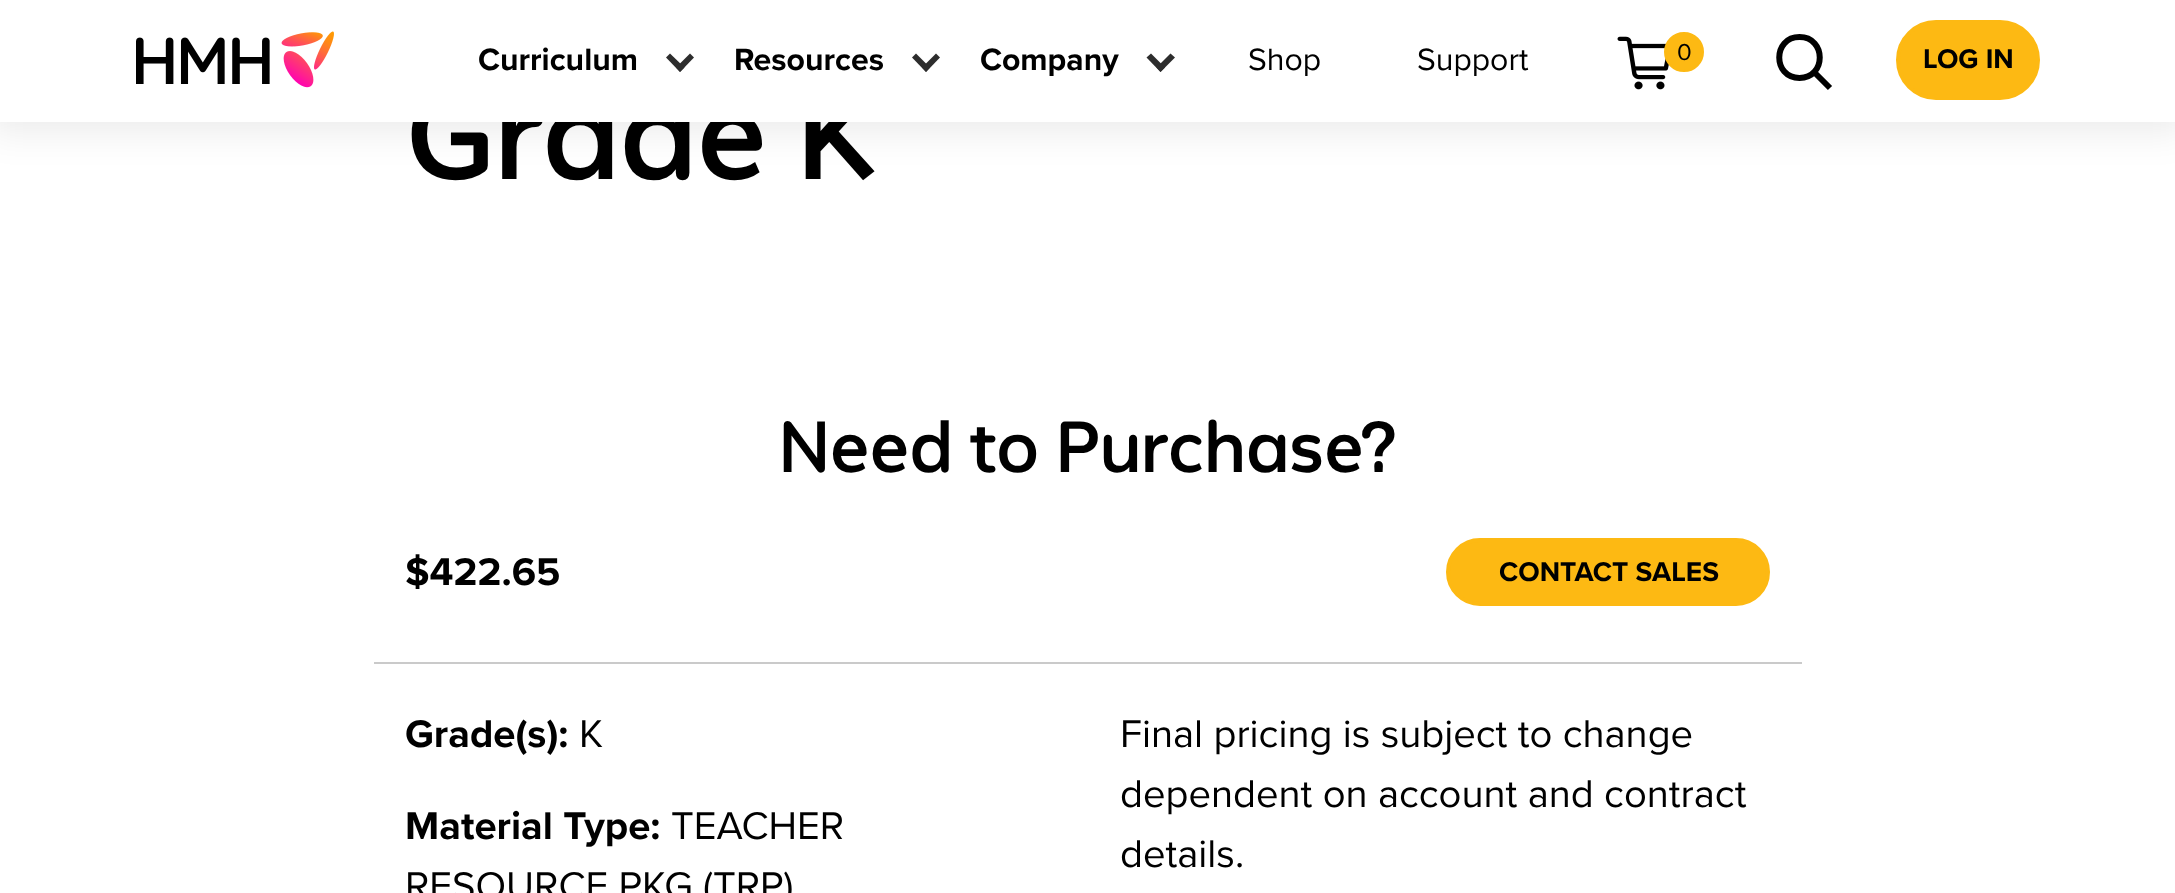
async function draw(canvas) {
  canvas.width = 2175
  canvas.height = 893
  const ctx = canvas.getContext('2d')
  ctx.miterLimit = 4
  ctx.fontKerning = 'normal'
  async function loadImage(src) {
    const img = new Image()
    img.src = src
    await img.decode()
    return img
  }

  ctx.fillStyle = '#fff'
  ctx.fillRect(0, 0, 2175, 893)
  ctx.fillStyle = '#00000014'
  ctx.filter = 'blur(18px)'
  ctx.beginPath()
  ctx.rect(-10, -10, 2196, 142)
  ctx.fill()
  ctx.filter = 'none'
  ctx.font = '500 128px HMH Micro'
  ctx.fillStyle = '#000'
  ctx.fillText('Grade K', 405, 179)
  ctx.fillStyle = '#fff'
  ctx.fillRect(0, 0, 2175, 122)
  ctx.drawImage(await loadImage('image0.png'), 136, 31, 198, 57)
  ctx.font = 'bold 32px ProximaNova'
  ctx.fillStyle = '#000'
  ctx.fillText('Curriculum', 478, 70)
  ctx.fillStyle = '#2d2d2d'
  ctx.beginPath()
  ctx.moveTo(694, 57.5)
  ctx.lineTo(680, 72)
  ctx.lineTo(676, 67.5)
  ctx.lineTo(690, 53.5)
  ctx.closePath()
  ctx.fill()
  ctx.beginPath()
  ctx.moveTo(684.5, 67.5)
  ctx.lineTo(680, 72)
  ctx.lineTo(666, 57.5)
  ctx.lineTo(670, 53.5)
  ctx.closePath()
  ctx.fill()
  ctx.fillStyle = '#000'
  ctx.fillText('Resources', 734, 70)
  ctx.fillStyle = '#2d2d2d'
  ctx.beginPath()
  ctx.moveTo(940, 57.5)
  ctx.lineTo(926, 72)
  ctx.lineTo(922, 67.5)
  ctx.lineTo(936, 53.5)
  ctx.closePath()
  ctx.fill()
  ctx.beginPath()
  ctx.moveTo(930, 67.5)
  ctx.lineTo(926, 72)
  ctx.lineTo(912, 57.5)
  ctx.lineTo(916, 53.5)
  ctx.closePath()
  ctx.fill()
  ctx.fillStyle = '#000'
  ctx.fillText('Company', 980, 70)
  ctx.fillStyle = '#2d2d2d'
  ctx.beginPath()
  ctx.moveTo(1175, 57.5)
  ctx.lineTo(1160.5, 72)
  ctx.lineTo(1156.5, 67.5)
  ctx.lineTo(1170.5, 53.5)
  ctx.closePath()
  ctx.fill()
  ctx.beginPath()
  ctx.moveTo(1165, 67.5)
  ctx.lineTo(1160.5, 72)
  ctx.lineTo(1146.5, 57.5)
  ctx.lineTo(1151, 53.5)
  ctx.closePath()
  ctx.fill()
  ctx.font = '32px ProximaNova'
  ctx.fillStyle = '#000'
  ctx.fillText('Shop', 1248, 70)
  ctx.fillText('Support', 1417, 70)
  ctx.drawImage(await loadImage('image1.png'), 1617, 36, 52, 54)
  ctx.fillStyle = '#fdb913'
  ctx.beginPath()
  ctx.arc(1684, 52, 19, 0, 2 * Math.PI)
  ctx.fill()
  ctx.strokeStyle = '#fdb913'
  ctx.lineWidth = 2
  ctx.stroke()
  ctx.font = '24px ProximaNova'
  ctx.fillStyle = '#000'
  ctx.fillText('0', 1677, 60)
  ctx.beginPath()
  ctx.moveTo(1799.5, 37)
  ctx.bezierCurveTo(1772.5, 37, 1772.5, 78, 1799.5, 78)
  ctx.bezierCurveTo(1826.5, 78, 1826.5, 37, 1799.5, 37)
  ctx.closePath()
  ctx.strokeStyle = '#000'
  ctx.lineWidth = 6
  ctx.lineCap = 'round'
  ctx.stroke()
  ctx.beginPath()
  ctx.moveTo(1813, 71)
  ctx.lineTo(1830, 88)
  ctx.lineCap = 'butt'
  ctx.stroke()
  ctx.fillStyle = '#fdb913'
  ctx.beginPath()
  ctx.roundRect(1898, 22, 140, 76, 38)
  ctx.fill()
  ctx.strokeStyle = '#fdb913'
  ctx.lineWidth = 4
  ctx.stroke()
  ctx.font = 'bold 28px ProximaNova'
  ctx.fillStyle = '#000'
  ctx.fillText('LOG IN', 1923, 68)
  ctx.font = '500 72px HMH Micro'
  ctx.fillText('Need to Purchase?', 779, 472)
  ctx.font = 'bold 40px ProximaNova'
  ctx.fillText('$422.65', 405, 585)
  ctx.fillStyle = '#fdb913'
  ctx.beginPath()
  ctx.roundRect(1448, 540, 320, 64, 32)
  ctx.fill()
  ctx.stroke()
  ctx.font = 'bold 28px ProximaNova'
  ctx.fillStyle = '#000'
  ctx.fillText('CONTACT SALES', 1499, 581)
  ctx.fillStyle = '#cacaca'
  ctx.fillRect(374, 662, 1428, 2)
  ctx.font = 'bold 40px ProximaNova'
  ctx.fillStyle = '#000'
  ctx.fillText('Grade(s):', 405, 747)
  ctx.font = '40px ProximaNova'
  ctx.fillText('K', 579, 747)
  ctx.font = 'bold 40px ProximaNova'
  ctx.fillText('Material Type:', 405, 839)
  ctx.font = '40px ProximaNova'
  ctx.fillText('TEACHER', 671, 839)
  ctx.fillText('RESOURCE PKG (TRP)', 405, 899)
  ctx.fillText('Final pricing is subject to change', 1120, 747)
  ctx.fillText('dependent on account and contract', 1120, 807)
  ctx.fillText('details.', 1120, 867)
}

draw(document.querySelector('canvas'))
